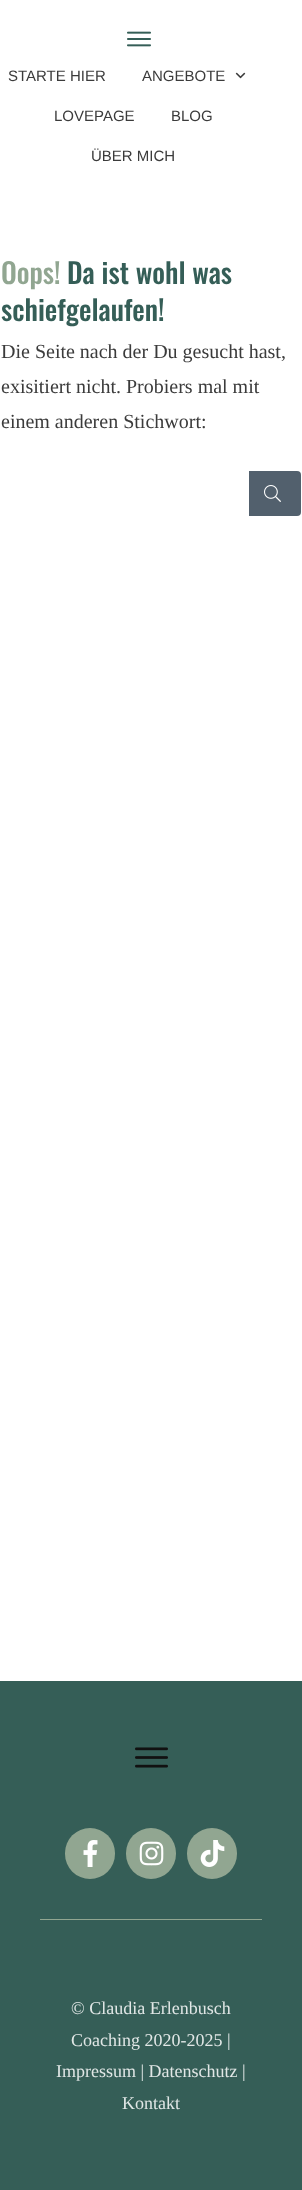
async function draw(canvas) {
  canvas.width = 302
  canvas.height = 2190
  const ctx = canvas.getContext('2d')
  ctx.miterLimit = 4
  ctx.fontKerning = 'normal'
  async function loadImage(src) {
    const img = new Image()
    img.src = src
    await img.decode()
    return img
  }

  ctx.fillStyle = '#fff'
  ctx.fillRect(0, 0, 302, 2190)
  ctx.drawImage(await loadImage('image0.png'), 127, 31, 24, 16)
  ctx.font = '15px Liberation Sans'
  ctx.fillStyle = '#3b3b3b'
  ctx.fillText('STARTE HIER', 8, 81)
  ctx.fillText('ANGEBOTE', 142, 81)
  ctx.drawImage(await loadImage('image1.png'), 235, 72, 11, 7)
  ctx.fillText('LOVEPAGE', 54, 121)
  ctx.fillText('BLOG', 171, 121)
  ctx.fillText('ÜBER MICH', 91, 161)
  ctx.font = '500 28px Oswald'
  ctx.fillStyle = '#91a691'
  ctx.fillText('Oops!', 1, 284)
  ctx.fillStyle = '#355e57'
  ctx.fillText('Da ist wohl was', 67, 284)
  ctx.fillText('schiefgelaufen!', 1, 321)
  ctx.font = '20px Liberation Serif'
  ctx.fillStyle = '#3b3b3b'
  ctx.fillText('Die Seite nach der Du gesucht hast,', 1, 358)
  ctx.fillText('exisitiert nicht. Probiers mal mit', 1, 393)
  ctx.fillText('einem anderen Stichwort:', 1, 428)
  ctx.fillStyle = '#52606d'
  ctx.beginPath()
  ctx.roundRect(249, 471, 52, 45, [0, 4, 4, 0])
  ctx.fill()
  ctx.drawImage(await loadImage('image2.png'), 264, 485, 17, 17)
  ctx.fillStyle = '#355e57'
  ctx.fillRect(0, 1681, 302, 509)
  ctx.drawImage(await loadImage('image3.png'), 135, 1747, 33, 21)
  ctx.fillStyle = '#91a691'
  ctx.fillRect(40, 1919, 222, 1)
  ctx.beginPath()
  ctx.roundRect(65, 1828, 50, 51, 25)
  ctx.fill()
  ctx.drawImage(await loadImage('image4.png'), 83, 1840, 15, 27)
  ctx.beginPath()
  ctx.roundRect(126, 1828, 50, 51, 25)
  ctx.fill()
  ctx.drawImage(await loadImage('image5.png'), 139, 1841, 25, 25)
  ctx.beginPath()
  ctx.roundRect(187, 1828, 50, 51, 25)
  ctx.fill()
  ctx.drawImage(await loadImage('image6.png'), 200, 1840, 25, 27)
  ctx.font = '18px Liberation Serif'
  ctx.fillStyle = '#e1e7e6'
  ctx.fillText('© Claudia Erlenbusch', 71, 2014)
  ctx.fillText('Coaching 2020-2025 |', 71, 2046)
  ctx.fillText('Impressum | Datenschutz |', 56, 2077)
  ctx.fillText('Kontakt', 122, 2109)
}

draw(document.querySelector('canvas'))
